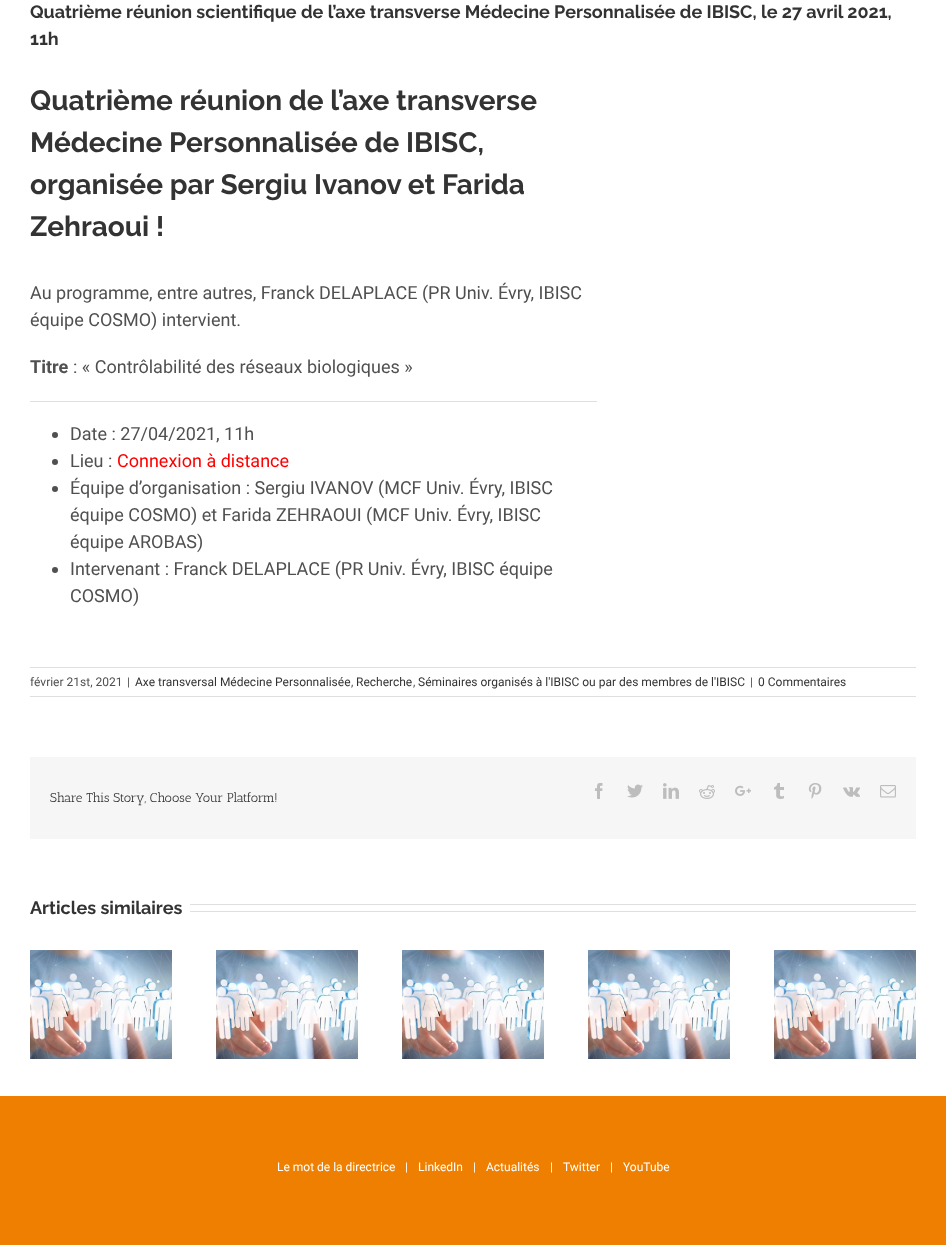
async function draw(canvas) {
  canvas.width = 946
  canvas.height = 1245
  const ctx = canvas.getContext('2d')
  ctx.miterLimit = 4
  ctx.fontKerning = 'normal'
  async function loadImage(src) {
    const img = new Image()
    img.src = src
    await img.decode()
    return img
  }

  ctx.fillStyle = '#fff'
  ctx.fillRect(0, 0, 946, 1245)
  ctx.font = '100 18px Raleway'
  ctx.fillStyle = '#333'
  ctx.fillText('Quatrième réunion scientifique de l’axe transverse Médecine Personnalisée de IBISC, le 27 avril 2021,', 30, 18)
  ctx.fillText('11h', 30, 45)
  ctx.font = '100 28px Raleway'
  ctx.fillText('Quatrième réunion de l’axe transverse', 30, 110)
  ctx.fillText('Médecine Personnalisée de IBISC,', 30, 152)
  ctx.fillText('organisée par Sergiu Ivanov et Farida', 30, 194)
  ctx.fillText('Zehraoui !', 30, 236)
  ctx.font = '18px Roboto'
  ctx.fillStyle = '#505050'
  ctx.fillText('Au programme, entre autres, Franck DELAPLACE (PR Univ. Évry, IBISC', 30, 299)
  ctx.fillText('équipe COSMO) intervient.', 30, 326)
  ctx.font = 'bold 18px Roboto'
  ctx.fillText('Titre', 30, 373)
  ctx.font = '18px Roboto'
  ctx.fillText(': « Contrôlabilité des réseaux biologiques »', 73, 373)
  ctx.fillStyle = '#e0dede'
  ctx.fillRect(30, 401, 567, 1)
  ctx.fillStyle = '#505050'
  ctx.beginPath()
  ctx.arc(55, 435, 3, 0, 2 * Math.PI)
  ctx.fill()
  ctx.fillText('Date : 27/04/2021, 11h', 70, 440)
  ctx.beginPath()
  ctx.arc(55, 462, 3, 0, 2 * Math.PI)
  ctx.fill()
  ctx.fillText('Lieu :', 70, 467)
  ctx.fillStyle = '#f00'
  ctx.fillText('Connexion à distance', 117, 467)
  ctx.fillStyle = '#505050'
  ctx.beginPath()
  ctx.arc(55, 489, 3, 0, 2 * Math.PI)
  ctx.fill()
  ctx.fillText('Équipe d’organisation : Sergiu IVANOV (MCF Univ. Évry, IBISC', 70, 494)
  ctx.fillText('équipe COSMO) et Farida ZEHRAOUI (MCF Univ. Évry, IBISC', 70, 521)
  ctx.fillText('équipe AROBAS)', 70, 548)
  ctx.beginPath()
  ctx.arc(55, 570, 3, 0, 2 * Math.PI)
  ctx.fill()
  ctx.fillText('Intervenant : Franck DELAPLACE (PR Univ. Évry, IBISC équipe', 70, 575)
  ctx.fillText('COSMO)', 70, 602)
  ctx.fillStyle = '#e0dede'
  ctx.fillRect(30, 667, 886, 1)
  ctx.fillRect(30, 696, 886, 1)
  ctx.font = '12px Roboto'
  ctx.fillStyle = '#505050'
  ctx.fillText('février 21st, 2021', 30, 686)
  ctx.fillText('|', 127, 686)
  ctx.fillStyle = '#333'
  ctx.fillText('Axe transversal Médecine Personnalisée', 135, 686)
  ctx.fillStyle = '#505050'
  ctx.fillText(',', 351, 686)
  ctx.fillStyle = '#333'
  ctx.fillText('Recherche', 356, 686)
  ctx.fillStyle = '#505050'
  ctx.fillText(',', 413, 686)
  ctx.fillStyle = '#333'
  ctx.fillText('Séminaires organisés à l\'IBISC ou par des membres de l\'IBISC', 418, 686)
  ctx.fillStyle = '#505050'
  ctx.fillText('|', 750, 686)
  ctx.fillStyle = '#333'
  ctx.fillText('0 Commentaires', 758, 686)
  ctx.fillStyle = '#f6f6f6'
  ctx.fillRect(30, 757, 886, 82)
  ctx.font = '13px Antic Slab'
  ctx.fillStyle = '#333'
  ctx.fillText('Share This Story, Choose Your Platform!', 50, 802)
  ctx.drawImage(await loadImage('image0.png'), 595, 783, 8, 16)
  ctx.drawImage(await loadImage('image1.png'), 627, 784, 16, 14)
  ctx.drawImage(await loadImage('image2.png'), 663, 783, 16, 16)
  ctx.drawImage(await loadImage('image3.png'), 699, 785, 16, 14)
  ctx.drawImage(await loadImage('image4.png'), 735, 785, 16, 11)
  ctx.drawImage(await loadImage('image5.png'), 774, 783, 10, 16)
  ctx.drawImage(await loadImage('image6.png'), 808, 783, 14, 16)
  ctx.drawImage(await loadImage('image7.png'), 843, 787, 17, 10)
  ctx.drawImage(await loadImage('image8.png'), 880, 785, 16, 13)
  ctx.font = '100 18px Raleway'
  ctx.fillText('Articles similaires', 30, 914)
  ctx.fillStyle = '#e0dede'
  ctx.fillRect(190, 904, 726, 1)
  ctx.fillRect(190, 911, 726, 1)
  ctx.drawImage(await loadImage('image9.png'), 30, 950, 142, 109)
  ctx.drawImage(await loadImage('image9.png'), 216, 950, 142, 109)
  ctx.drawImage(await loadImage('image9.png'), 402, 950, 142, 109)
  ctx.drawImage(await loadImage('image10.png'), 588, 950, 142, 109)
  ctx.drawImage(await loadImage('image9.png'), 774, 950, 142, 109)
  ctx.fillStyle = '#ee7f00'
  ctx.fillRect(0, 1096, 946, 149)
  ctx.font = '12px Roboto'
  ctx.fillStyle = '#fff'
  ctx.fillText('Le mot de la directrice', 277, 1171)
  ctx.fillText('|', 405, 1171)
  ctx.fillText('LinkedIn', 418, 1171)
  ctx.fillText('|', 473, 1171)
  ctx.fillText('Actualités', 486, 1171)
  ctx.fillText('|', 550, 1171)
  ctx.fillText('Twitter', 563, 1171)
  ctx.fillText('|', 610, 1171)
  ctx.fillText('YouTube', 623, 1171)
}

draw(document.querySelector('canvas'))
